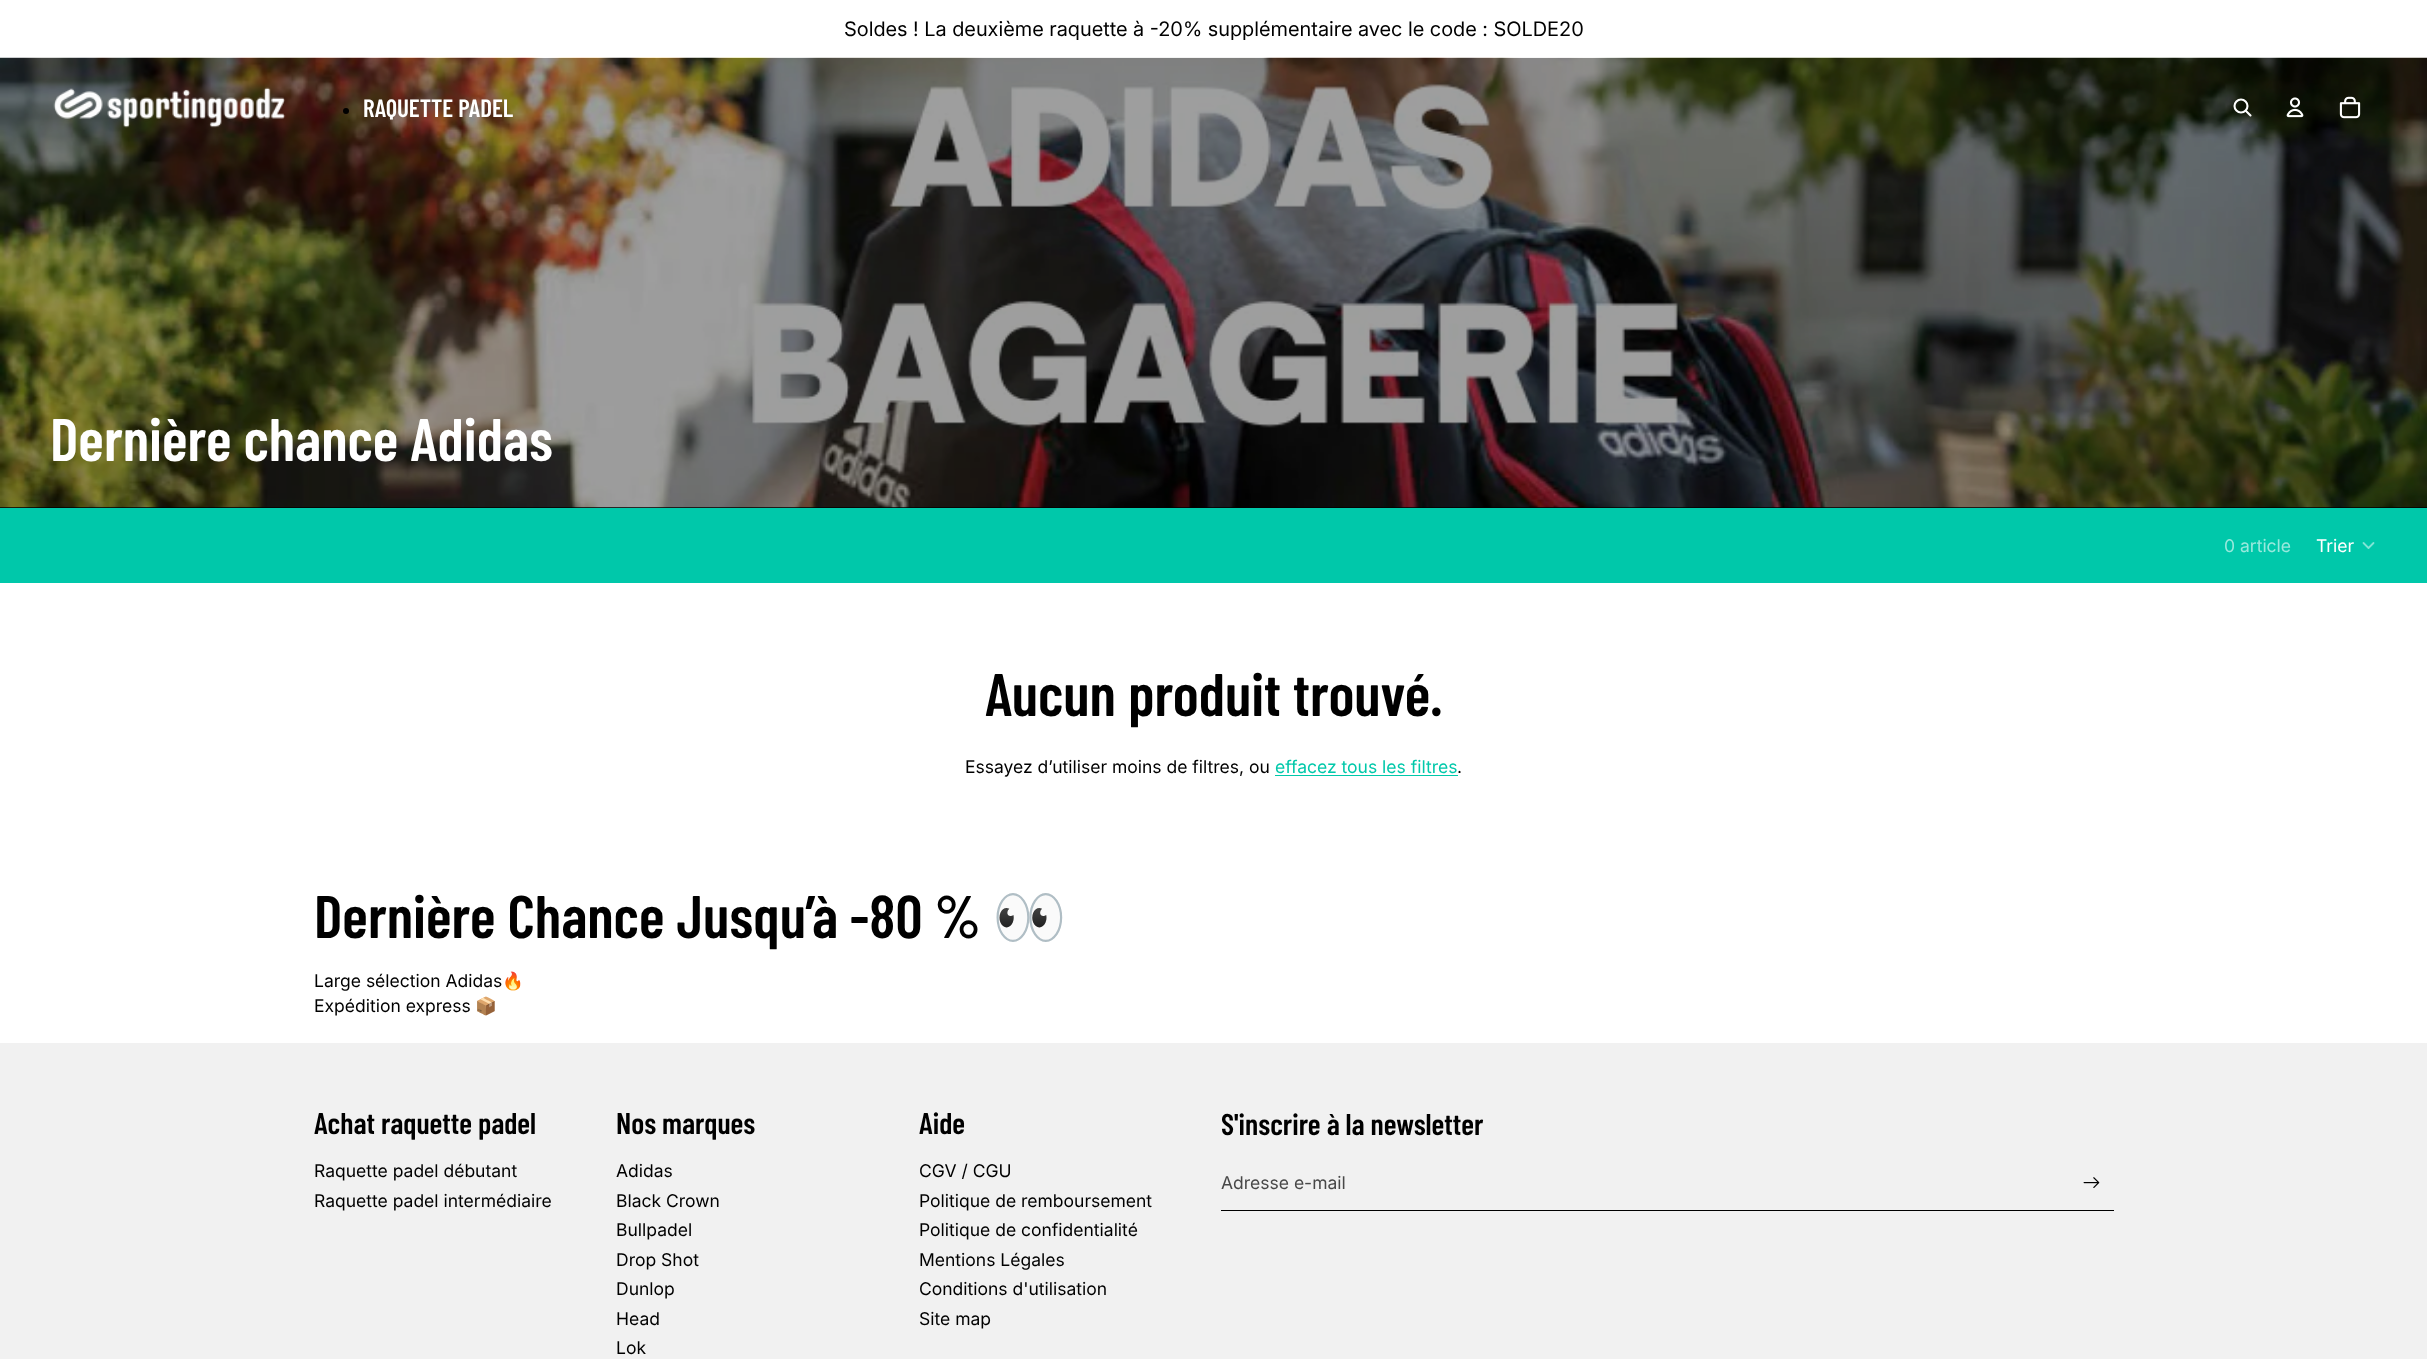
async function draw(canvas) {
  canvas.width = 2427
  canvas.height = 1359
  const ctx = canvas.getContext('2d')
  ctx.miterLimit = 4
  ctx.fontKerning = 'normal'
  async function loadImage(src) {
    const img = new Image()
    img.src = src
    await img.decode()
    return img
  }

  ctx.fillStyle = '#fff'
  ctx.fillRect(0, 0, 2427, 1359)
  ctx.font = '20px Inter'
  ctx.fillStyle = '#000'
  ctx.fillText('Soldes ! La deuxième raquette à -20% supplémentaire avec le code : SOLDE20', 844, 36)
  ctx.fillRect(0, 507, 2427, 1)
  ctx.drawImage(await loadImage('image3.png'), 0, 57, 2427, 451)
  ctx.drawImage(await loadImage('image0.png'), 53, 87, 233, 41)
  ctx.beginPath()
  ctx.arc(346, 111, 3, 0, 2 * Math.PI)
  ctx.fill()
  ctx.font = '600 25px Barlow Condensed'
  ctx.fillStyle = '#fff'
  ctx.fillText('RAQUETTE PADEL', 363, 117)
  ctx.beginPath()
  ctx.arc(2241, 106, 6.5, 0, 2 * Math.PI)
  ctx.strokeStyle = '#fff'
  ctx.lineWidth = 2.1
  ctx.stroke()
  ctx.beginPath()
  ctx.moveTo(2246, 111)
  ctx.lineTo(2250.5, 115.5)
  ctx.lineCap = 'round'
  ctx.lineJoin = 'round'
  ctx.stroke()
  ctx.drawImage(await loadImage('image1.png'), 2286, 97, 18, 21)
  ctx.drawImage(await loadImage('image2.png'), 2339, 96, 22, 23)
  ctx.font = '600 60px Barlow Condensed'
  ctx.fillText('Dernière chance Adidas', 50, 461)
  ctx.fillStyle = '#00c8aa'
  ctx.fillRect(0, 508, 2427, 75)
  ctx.font = '17.5px "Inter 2"'
  ctx.fillStyle = '#99e9dd'
  ctx.fillText('0 article', 2224, 552)
  ctx.fillStyle = '#fff'
  ctx.fillText('Trier', 2316, 552)
  ctx.beginPath()
  ctx.moveTo(2373.5, 543)
  ctx.lineTo(2368.5, 548)
  ctx.lineTo(2363.5, 543)
  ctx.strokeStyle = '#80e4d5'
  ctx.lineWidth = 1.8
  ctx.stroke()
  ctx.font = '600 60px Barlow Condensed'
  ctx.fillStyle = '#000'
  ctx.fillText('Aucun produit trouvé.', 985, 716)
  ctx.font = '17.5px "Inter 2"'
  ctx.fillText('Essayez d’utiliser moins de filtres, ou', 965, 773)
  ctx.fillStyle = '#00c8aa'
  ctx.fillText('effacez tous les filtres', 1275, 773)
  ctx.fillRect(1275, 775, 183, 1)
  ctx.fillStyle = '#000'
  ctx.fillText('.', 1457, 773)
  ctx.font = '600 60px Barlow Condensed'
  ctx.fillText('Dernière Chance Jusqu’à -80 %', 314, 938)
  ctx.font = 'bold 60px Noto Color Emoji'
  ctx.fillText('👀', 992, 938)
  ctx.font = '17.5px "Inter 2"'
  ctx.fillText('Large sélection Adidas', 314, 987)
  ctx.font = '17.5px Noto Color Emoji'
  ctx.fillText('🔥', 502, 987)
  ctx.font = '17.5px "Inter 2"'
  ctx.fillText('Expédition express', 314, 1012)
  ctx.font = '17.5px Noto Color Emoji'
  ctx.fillText('📦', 475, 1012)
  ctx.fillStyle = '#f1f1f1'
  ctx.fillRect(0, 1043, 2427, 316)
  ctx.font = '600 30px Barlow Condensed'
  ctx.fillStyle = '#000'
  ctx.fillText('Achat raquette padel', 314, 1134)
  ctx.font = '17.5px "Inter 2"'
  ctx.fillText('Raquette padel débutant', 314, 1177)
  ctx.fillText('Raquette padel intermédiaire', 314, 1207)
  ctx.font = '600 30px Barlow Condensed'
  ctx.fillText('Nos marques', 616, 1134)
  ctx.font = '17.5px "Inter 2"'
  ctx.fillText('Adidas', 616, 1177)
  ctx.fillText('Black Crown', 616, 1207)
  ctx.fillText('Bullpadel', 616, 1236)
  ctx.fillText('Drop Shot', 616, 1266)
  ctx.fillText('Dunlop', 616, 1295)
  ctx.fillText('Head', 616, 1325)
  ctx.fillText('Lok', 616, 1354)
  ctx.font = '600 30px Barlow Condensed'
  ctx.fillText('Aide', 919, 1134)
  ctx.font = '17.5px "Inter 2"'
  ctx.fillText('CGV / CGU', 919, 1177)
  ctx.fillText('Politique de remboursement', 919, 1207)
  ctx.fillText('Politique de confidentialité', 919, 1236)
  ctx.fillText('Mentions Légales', 919, 1266)
  ctx.fillText('Conditions d\'utilisation', 919, 1295)
  ctx.fillText('Site map', 919, 1325)
  ctx.font = '600 30px Barlow Condensed'
  ctx.fillText('S\'inscrire à la newsletter', 1221, 1135)
  ctx.beginPath()
  ctx.moveTo(1221, 1156)
  ctx.lineTo(1221, 1211)
  ctx.lineTo(2114, 1211)
  ctx.lineTo(2114, 1156)
  ctx.lineTo(2114, 1210)
  ctx.lineTo(1221, 1210)
  ctx.closePath()
  ctx.fill()
  ctx.font = '17.5px "Inter 2"'
  ctx.fillStyle = '#484848'
  ctx.fillText('Adresse e-mail', 1221, 1189)
  ctx.drawImage(await loadImage('image4.png'), 2083, 1177, 17, 11)
}

draw(document.querySelector('canvas'))
